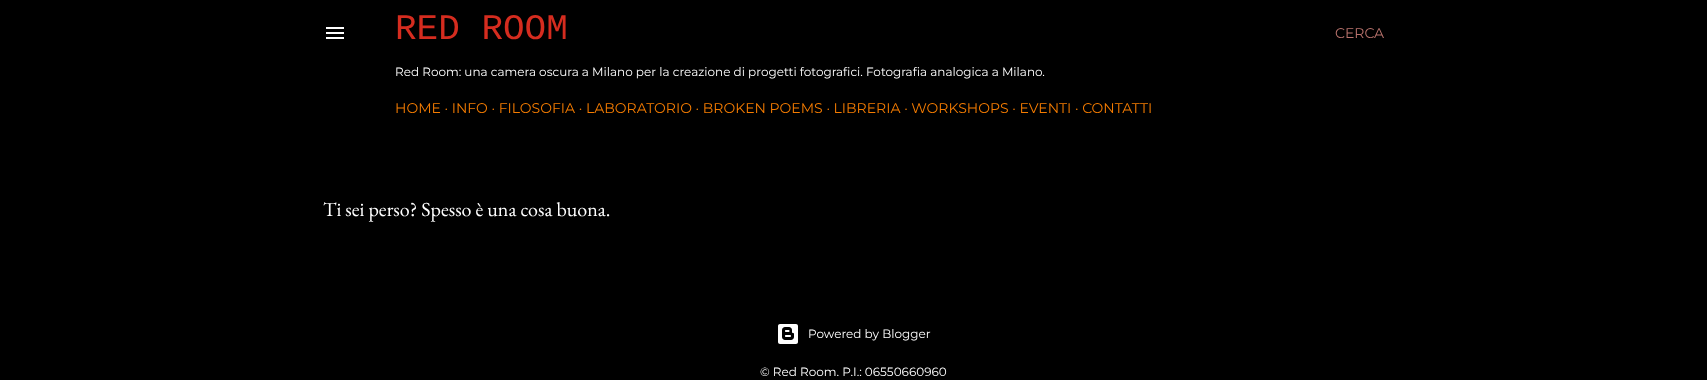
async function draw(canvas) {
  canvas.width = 1707
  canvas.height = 380
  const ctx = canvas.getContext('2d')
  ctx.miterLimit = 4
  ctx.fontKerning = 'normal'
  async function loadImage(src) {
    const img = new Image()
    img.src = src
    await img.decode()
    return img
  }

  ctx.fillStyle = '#000'
  ctx.fillRect(0, 0, 1707, 380)
  ctx.drawImage(await loadImage('image0.png'), 326, 27, 18, 12)
  ctx.font = '36px Liberation Mono'
  ctx.fillStyle = '#d52c1f'
  ctx.fillText('RED ROOM', 395, 39)
  ctx.font = '12px Montserrat'
  ctx.fillStyle = '#fff'
  ctx.fillText('Red Room: una camera oscura a Milano per la creazione di progetti fotografici. Fotografia analogica a Milano.', 395, 76)
  ctx.font = '14px Montserrat'
  ctx.fillStyle = '#f57c00'
  ctx.fillText('HOME · INFO · FILOSOFIA · LABORATORIO · BROKEN POEMS · LIBRERIA · WORKSHOPS · EVENTI · CONTATTI', 395, 113)
  ctx.fillStyle = '#ba736d'
  ctx.fillText('CERCA', 1335, 38)
  ctx.font = '20px EB Garamond'
  ctx.fillStyle = '#fff'
  ctx.fillText('Ti sei perso? Spesso è una cosa buona.', 323, 216)
  ctx.drawImage(await loadImage('image1.png'), 778, 324, 20, 20)
  ctx.font = '12px Montserrat'
  ctx.fillText('Powered by Blogger', 808, 338)
  ctx.fillText('© Red Room. P.I.: 06550660960', 760, 376)
}

draw(document.querySelector('canvas'))
